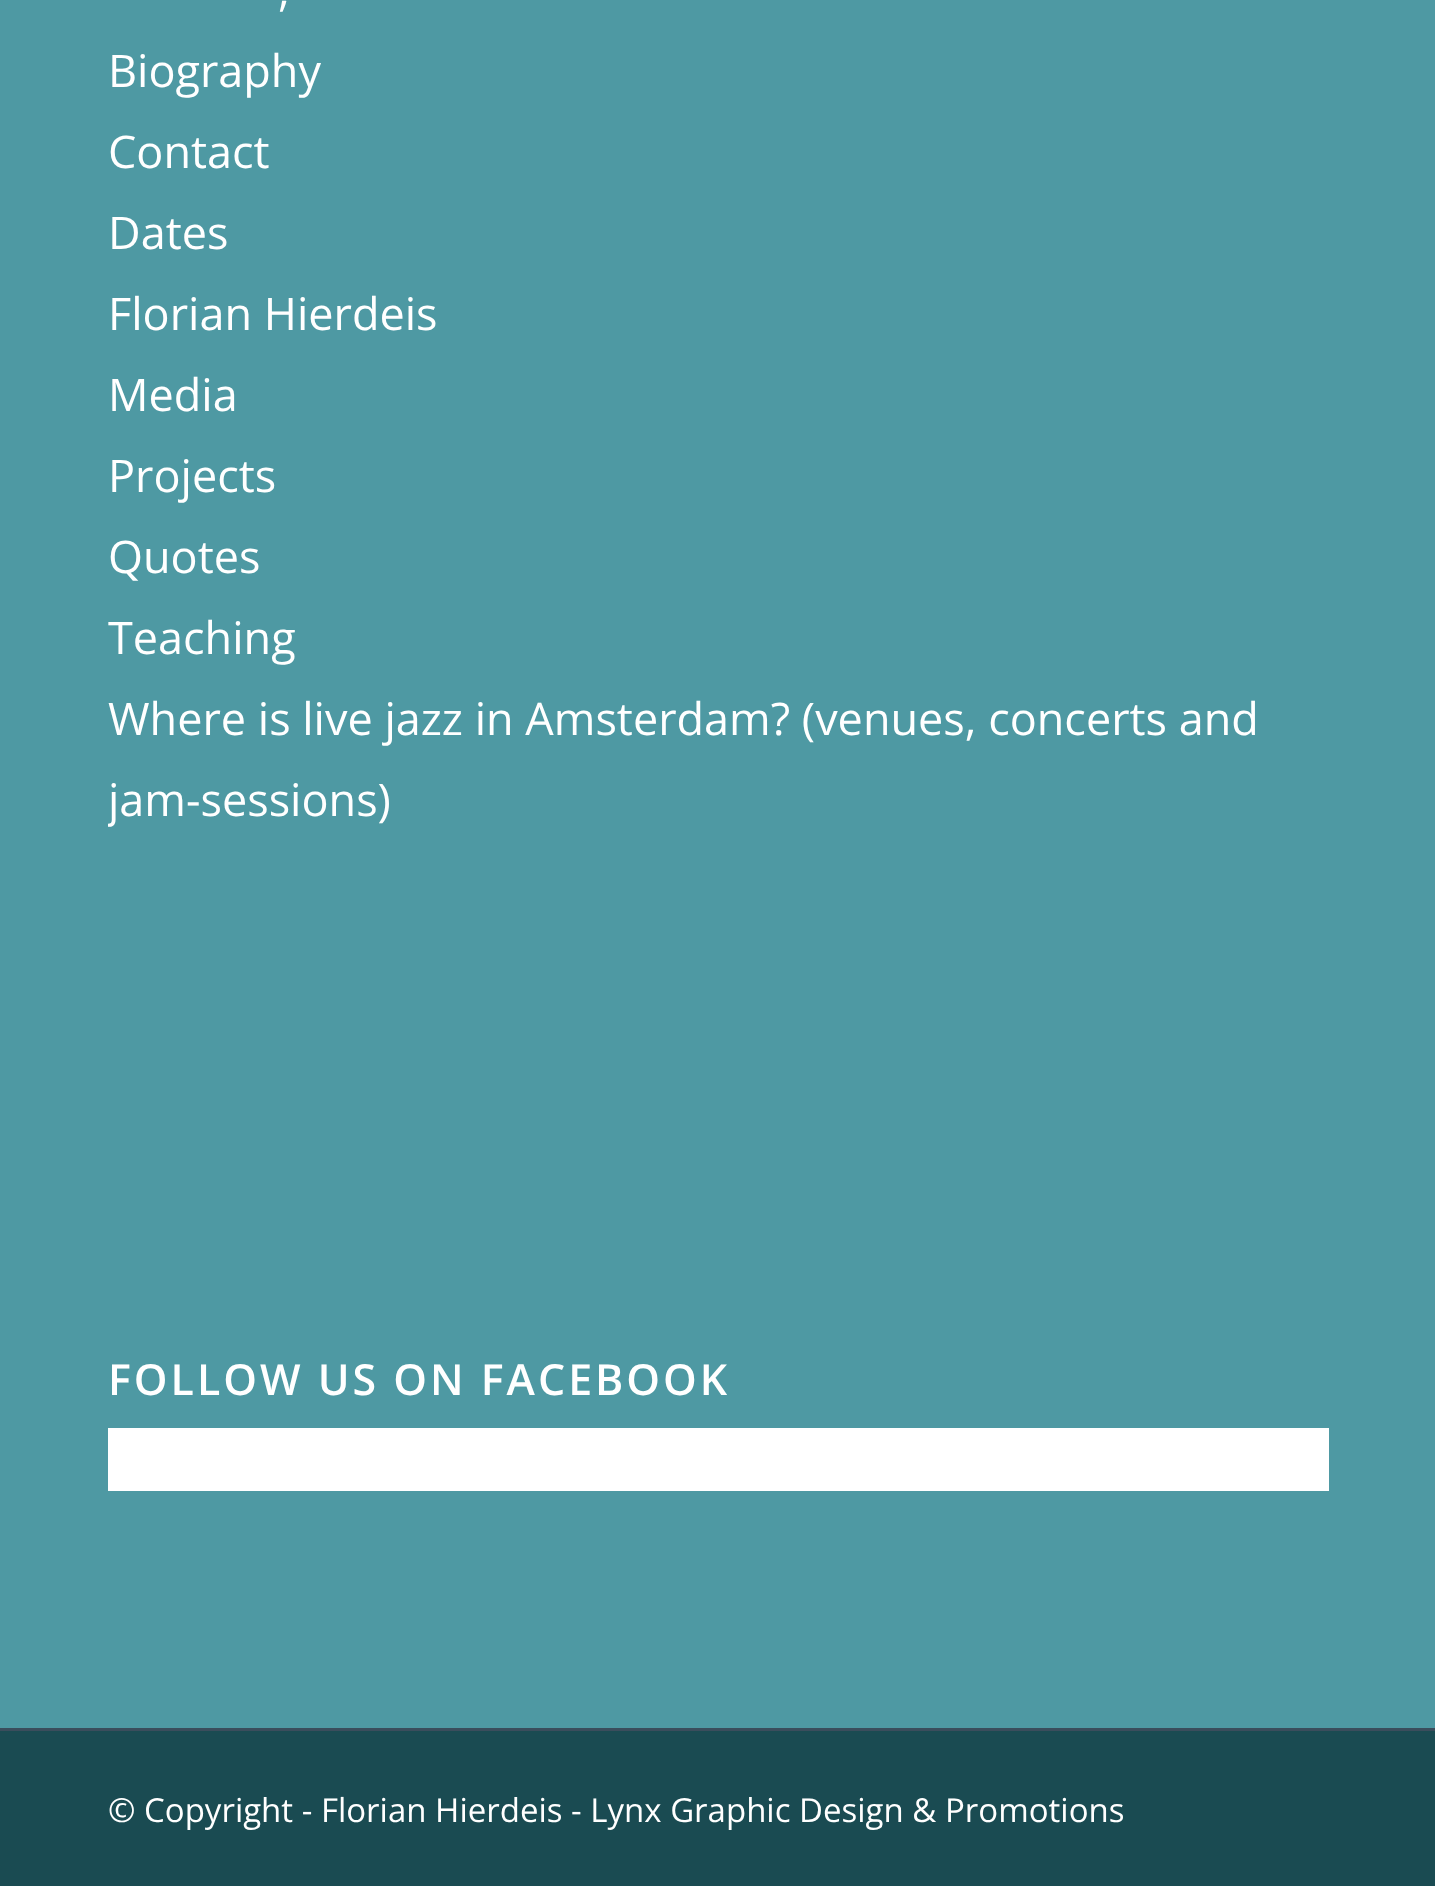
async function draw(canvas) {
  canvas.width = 1435
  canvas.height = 1886
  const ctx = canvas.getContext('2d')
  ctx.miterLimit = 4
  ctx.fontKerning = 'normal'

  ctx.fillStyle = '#4e99a3'
  ctx.fillRect(0, 0, 1435, 1886)
  ctx.font = '45px Open Sans'
  ctx.fillStyle = '#fff'
  ctx.fillText(',', 278, 6)
  ctx.fillText('Biography', 108, 87)
  ctx.fillText('Contact', 108, 168)
  ctx.fillText('Dates', 108, 249)
  ctx.fillText('Florian Hierdeis', 108, 330)
  ctx.fillText('Media', 108, 411)
  ctx.fillText('Projects', 108, 492)
  ctx.fillText('Quotes', 108, 573)
  ctx.fillText('Teaching', 108, 654)
  ctx.fillText('Where is live jazz in Amsterdam? (venues, concerts and', 108, 735)
  ctx.save()
  ctx.beginPath()
  ctx.rect(108, 0, 1221, 840)
  ctx.clip()
  ctx.fillText('jam-sessions)', 108, 816)
  ctx.restore()
  ctx.letterSpacing = '3px'
  ctx.font = '600 42.9px Open Sans'
  ctx.fillText('FOLLOW US ON FACEBOOK', 108, 1395)
  ctx.fillRect(108, 1428, 1221, 63)
  ctx.fillStyle = '#1a4b52'
  ctx.fillRect(0, 1731, 1435, 155)
  ctx.fillStyle = '#3a4d5c'
  ctx.fillRect(0, 1728, 1435, 3)
  ctx.letterSpacing = '0px'
  ctx.font = '33px Open Sans'
  ctx.fillStyle = '#fff'
  ctx.fillText('© Copyright - Florian Hierdeis - Lynx Graphic Design & Promotions', 108, 1822)
}

draw(document.querySelector('canvas'))
